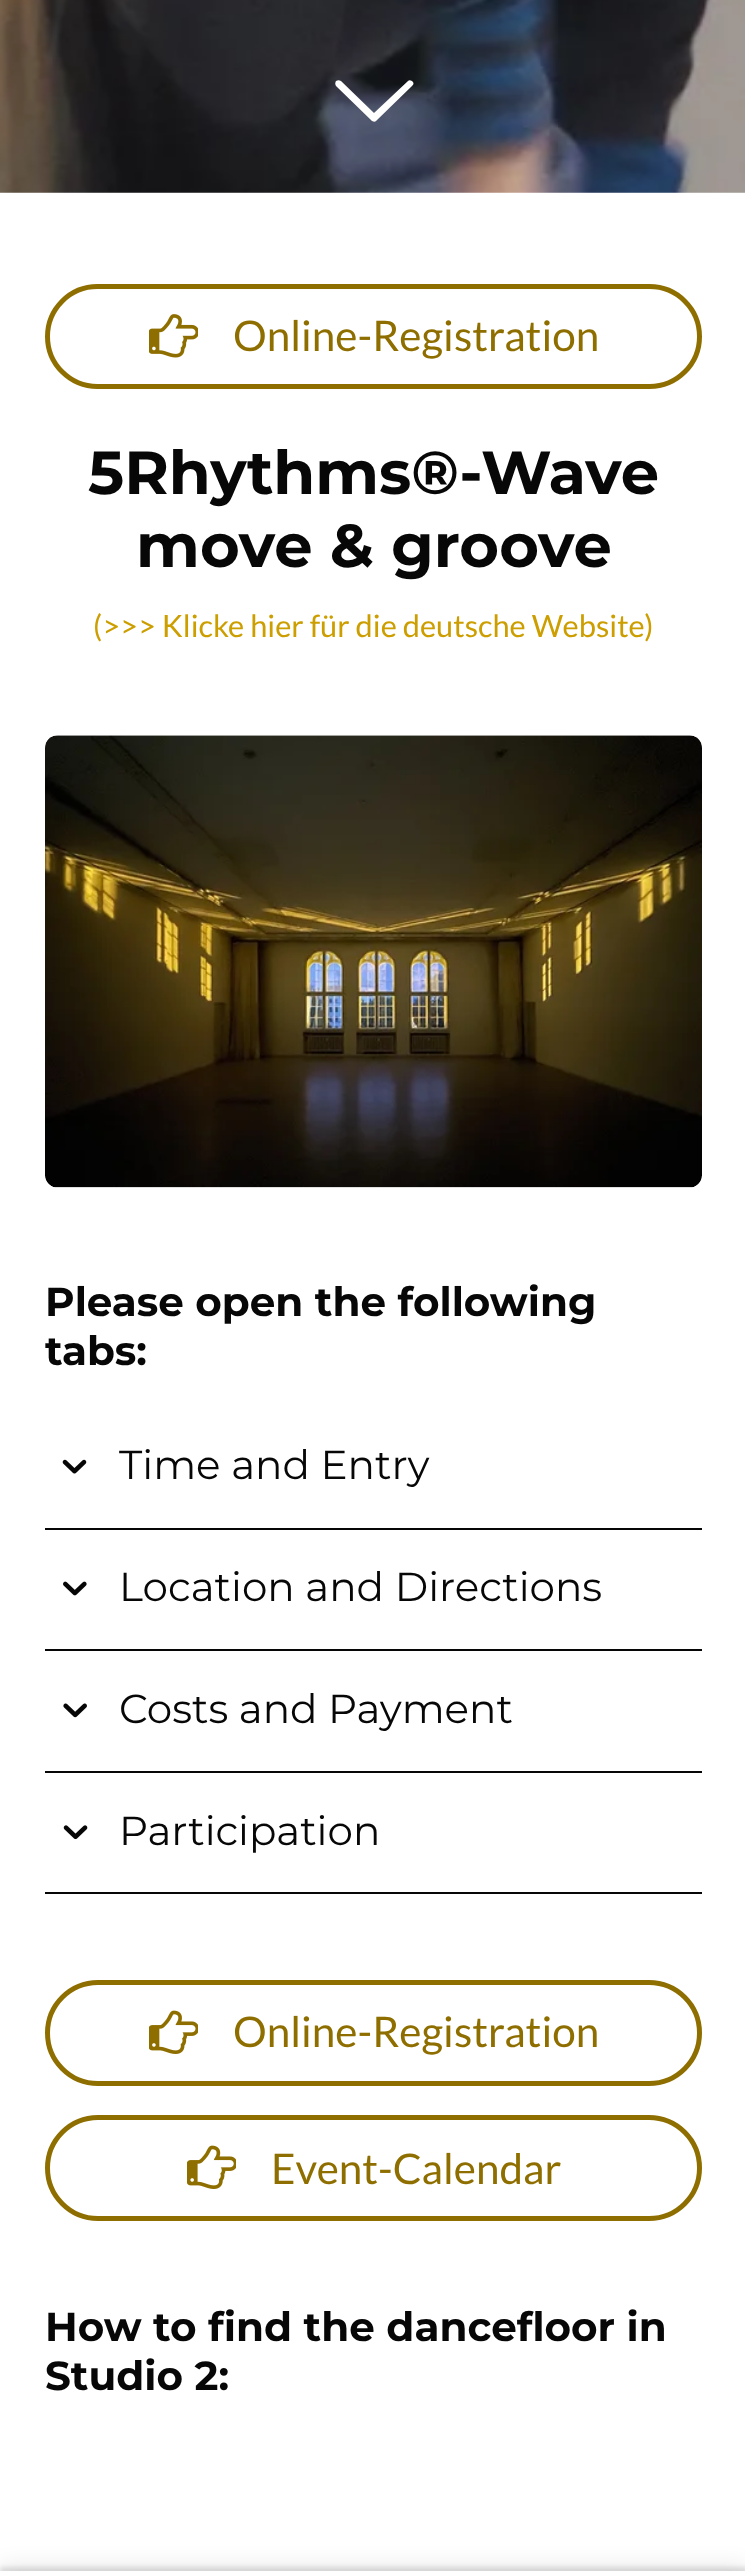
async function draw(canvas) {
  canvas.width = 745
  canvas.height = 2571
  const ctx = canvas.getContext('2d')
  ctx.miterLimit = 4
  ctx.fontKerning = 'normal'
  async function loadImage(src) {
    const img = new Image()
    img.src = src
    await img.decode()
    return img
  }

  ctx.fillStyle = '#fff'
  ctx.fillRect(0, 0, 745, 2571)
  ctx.drawImage(await loadImage('image0.png'), 0, 0, 745, 193)
  ctx.beginPath()
  ctx.moveTo(341, 81)
  ctx.lineTo(374, 113)
  ctx.lineTo(408, 81)
  ctx.bezierCurveTo(409, 80, 410, 80, 412, 81)
  ctx.bezierCurveTo(414, 83, 414, 84, 412, 86)
  ctx.lineTo(376, 121)
  ctx.bezierCurveTo(375, 122, 374, 122, 372, 121)
  ctx.lineTo(336, 86)
  ctx.bezierCurveTo(335, 84, 335, 83, 336, 81)
  ctx.bezierCurveTo(338, 80, 339, 80, 341, 81)
  ctx.closePath()
  ctx.fill()
  ctx.beginPath()
  ctx.roundRect(47.5, 286.5, 652, 100, 50)
  ctx.strokeStyle = '#8f6e00'
  ctx.lineWidth = 5
  ctx.stroke()
  ctx.drawImage(await loadImage('image1.png'), 149, 314, 49, 44)
  ctx.font = '42.25px Lato'
  ctx.fillStyle = '#8f6e00'
  ctx.fillText('Online-Registration', 233, 351)
  ctx.font = 'bold 60.75px Montserrat'
  ctx.fillStyle = '#070707'
  ctx.fillText('5Rhythms®-Wave', 88, 494)
  ctx.fillText('move & groove', 136, 567)
  ctx.font = '30.8px Lato'
  ctx.fillStyle = '#cc9e00'
  ctx.fillText('(>>> Klicke hier für die deutsche Website)', 93, 637)
  ctx.drawImage(await loadImage('image2.png'), 45, 735, 657, 453)
  ctx.font = 'bold 40.5px Montserrat'
  ctx.fillStyle = '#070707'
  ctx.fillText('Please open the following', 45, 1316)
  ctx.fillText('tabs:', 45, 1365)
  ctx.fillStyle = '#060606'
  ctx.fillRect(45, 1528, 657, 2)
  ctx.drawImage(await loadImage('image3.png'), 62, 1459, 25, 15)
  ctx.font = '40.5px Montserrat'
  ctx.fillStyle = '#070707'
  ctx.fillText('Time and Entry', 119, 1479)
  ctx.fillStyle = '#060606'
  ctx.fillRect(45, 1649, 657, 2)
  ctx.drawImage(await loadImage('image4.png'), 63, 1581, 24, 15)
  ctx.fillStyle = '#070707'
  ctx.fillText('Location and Directions', 119, 1601)
  ctx.fillStyle = '#060606'
  ctx.fillRect(45, 1771, 657, 2)
  ctx.drawImage(await loadImage('image5.png'), 63, 1703, 24, 15)
  ctx.fillStyle = '#070707'
  ctx.fillText('Costs and Payment', 119, 1723)
  ctx.fillStyle = '#060606'
  ctx.fillRect(45, 1892, 657, 2)
  ctx.drawImage(await loadImage('image6.png'), 63, 1825, 25, 15)
  ctx.fillStyle = '#070707'
  ctx.fillText('Participation', 119, 1845)
  ctx.beginPath()
  ctx.roundRect(47.5, 1982.5, 652, 101, 50.5)
  ctx.stroke()
  ctx.drawImage(await loadImage('image7.png'), 149, 2010, 49, 44)
  ctx.font = '42.25px Lato'
  ctx.fillStyle = '#8f6e00'
  ctx.fillText('Online-Registration', 233, 2047)
  ctx.beginPath()
  ctx.roundRect(47.5, 2117.5, 652, 101, 50.5)
  ctx.stroke()
  ctx.drawImage(await loadImage('image8.png'), 187, 2145, 49, 44)
  ctx.fillText('Event-Calendar', 271, 2184)
  ctx.font = 'bold 40.5px Montserrat'
  ctx.fillStyle = '#070707'
  ctx.fillText('How to find the dancefloor in', 45, 2341)
  ctx.fillText('Studio 2:', 45, 2390)
  ctx.fillStyle = '#0000001a'
  ctx.filter = 'blur(2px)'
  ctx.beginPath()
  ctx.rect(0, 2567, 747, 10)
  ctx.fill()
  ctx.filter = 'none'
  ctx.filter = 'blur(11px)'
  ctx.beginPath()
  ctx.rect(0, 2567, 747, 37)
  ctx.fill()
  ctx.filter = 'none'
}

draw(document.querySelector('canvas'))
